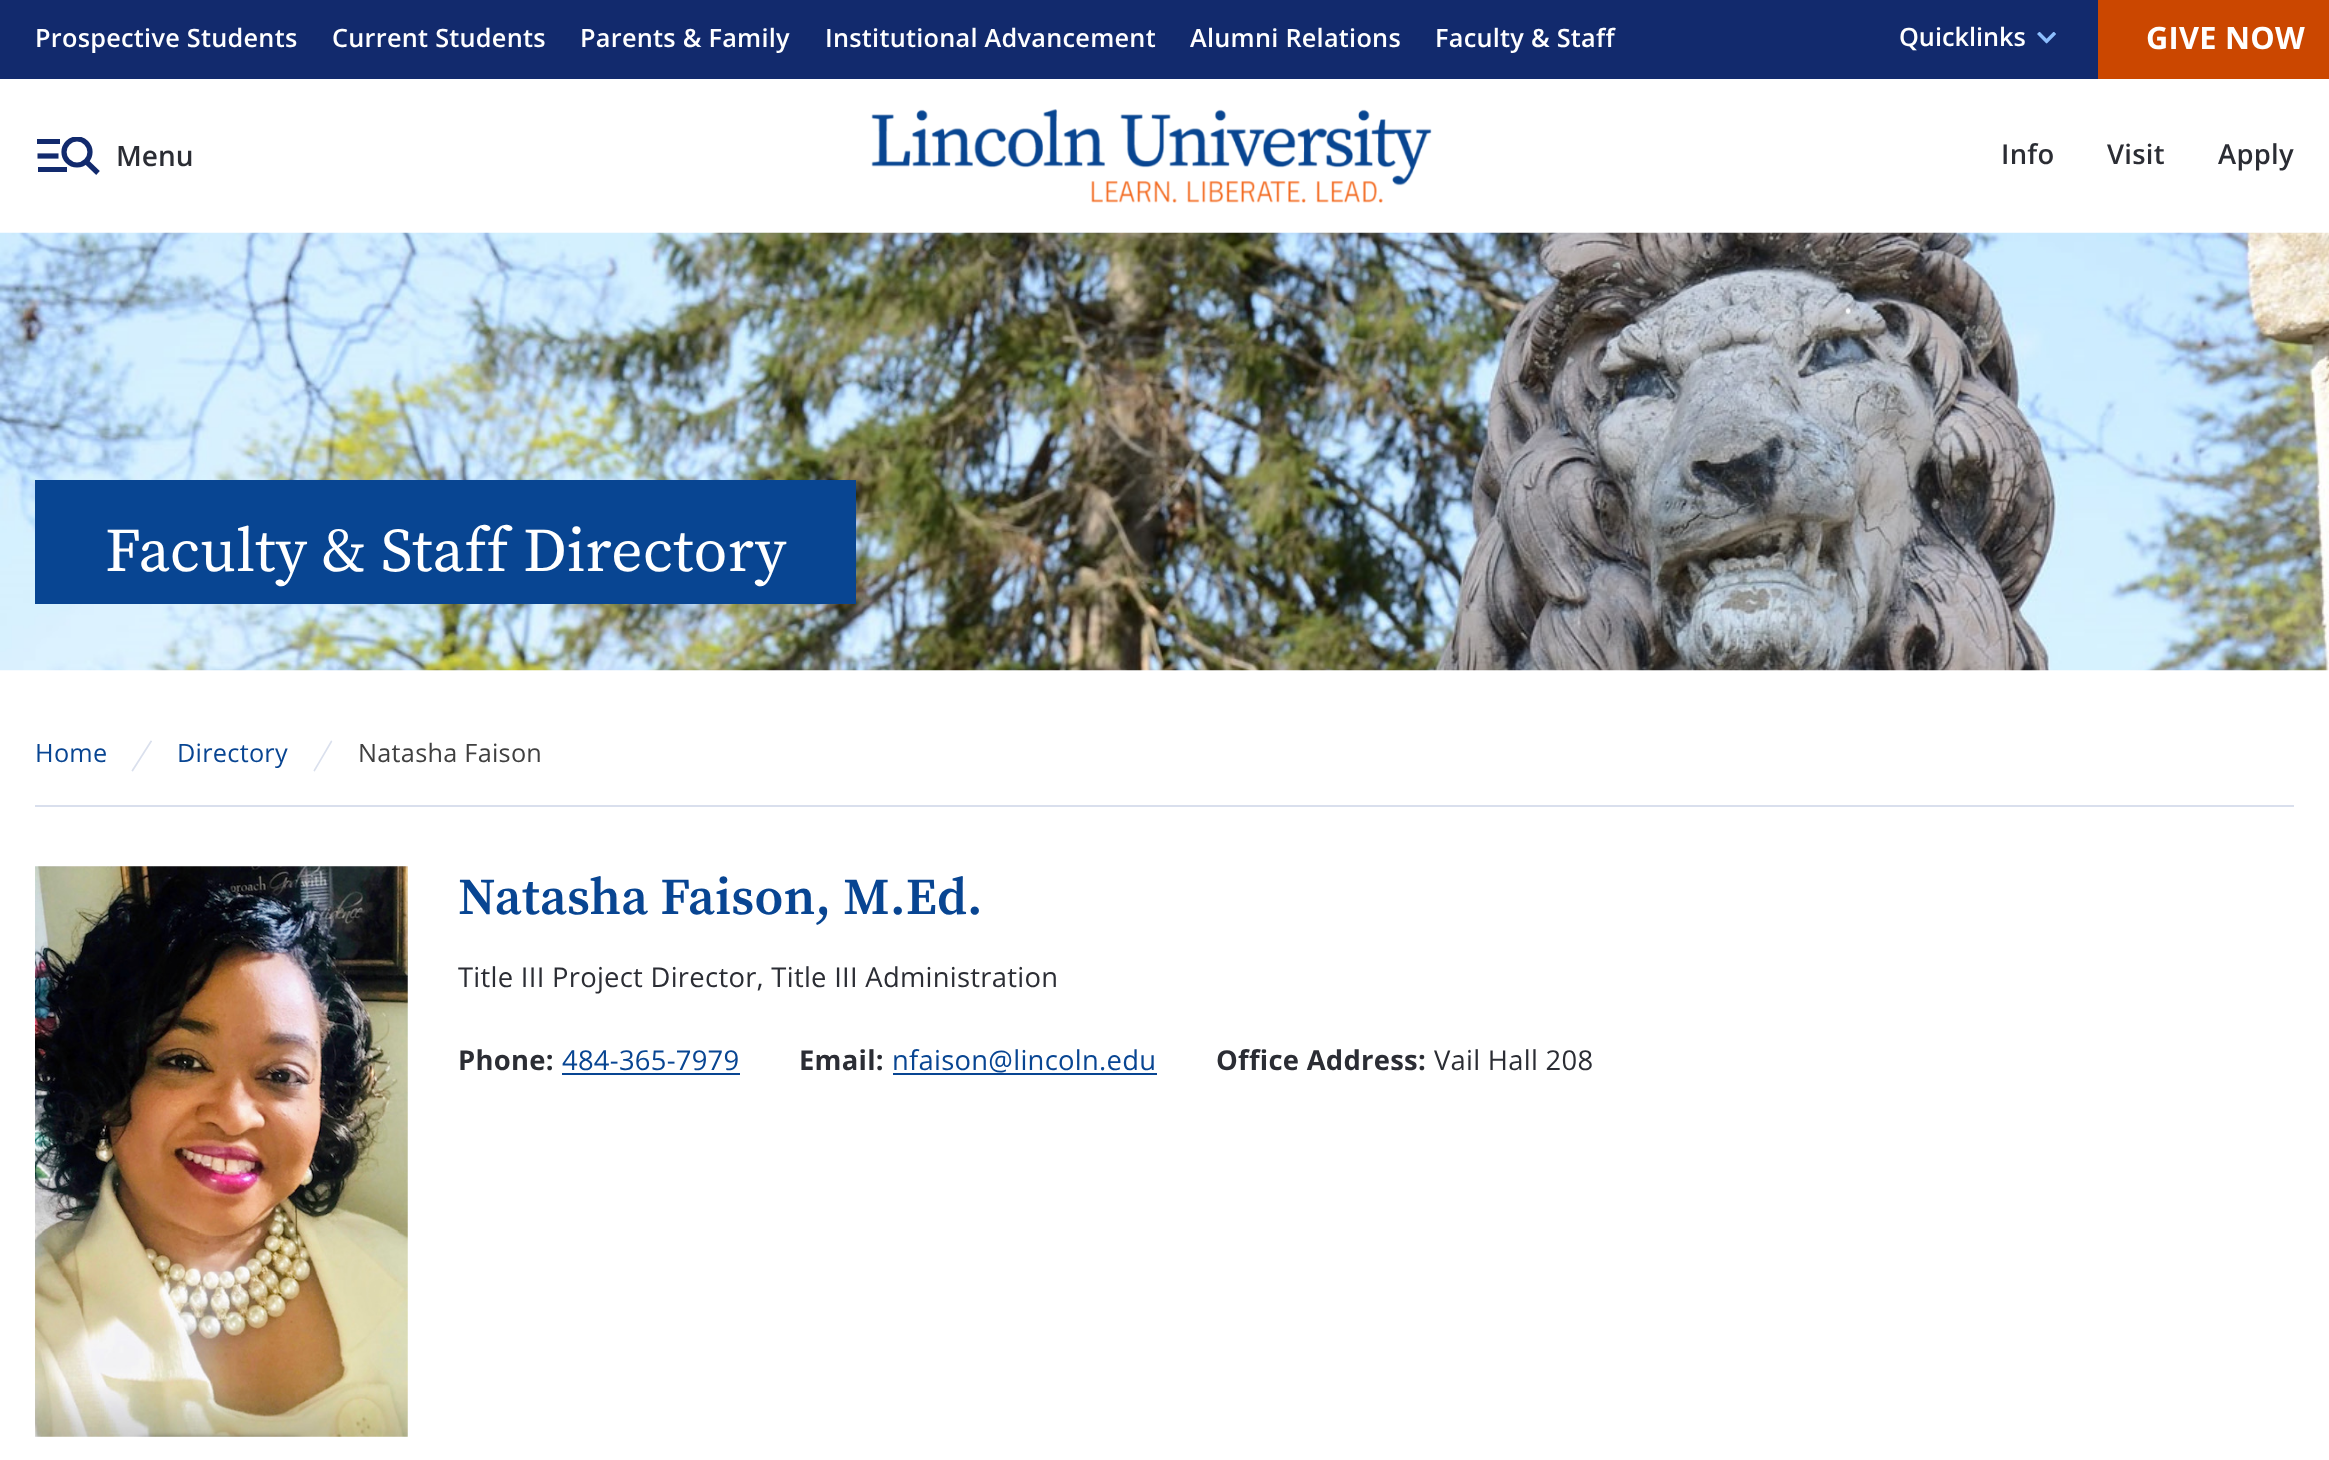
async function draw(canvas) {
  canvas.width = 2329
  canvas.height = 1460
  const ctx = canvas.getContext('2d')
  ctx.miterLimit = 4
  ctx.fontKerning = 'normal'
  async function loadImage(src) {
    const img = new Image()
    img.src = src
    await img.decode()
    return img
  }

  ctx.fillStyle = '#fff'
  ctx.fillRect(0, 0, 2329, 1460)
  ctx.fillStyle = '#122a6d'
  ctx.fillRect(0, 0, 2098, 79)
  ctx.letterSpacing = '0.27px'
  ctx.font = '600 25.25px Open Sans'
  ctx.fillStyle = '#fff'
  ctx.fillText('Prospective Students', 35, 47)
  ctx.fillText('Current Students', 332, 47)
  ctx.fillText('Parents & Family', 580, 47)
  ctx.fillText('Institutional Advancement', 825, 47)
  ctx.fillText('Alumni Relations', 1190, 47)
  ctx.fillText('Faculty & Staff', 1435, 47)
  ctx.letterSpacing = '0px'
  ctx.fillText('Quicklinks', 1899, 46)
  ctx.drawImage(await loadImage('image0.png'), 2037, 32, 19, 12)
  ctx.fillStyle = '#cb4700'
  ctx.fillRect(2098, 0, 231, 79)
  ctx.letterSpacing = '0.27px'
  ctx.font = 'bold 30.75px Open Sans'
  ctx.fillStyle = '#fff'
  ctx.fillText('GIVE NOW', 2146, 49)
  ctx.fillStyle = '#122a6d'
  ctx.fillRect(37, 139, 23, 5)
  ctx.beginPath()
  ctx.moveTo(37.5, 156)
  ctx.lineTo(58.5, 156)
  ctx.strokeStyle = '#122a6d'
  ctx.lineWidth = 5.2
  ctx.stroke()
  ctx.fillRect(38, 167, 29, 5)
  ctx.save()
  ctx.beginPath()
  ctx.rect(37, 137, 63, 38)
  ctx.clip()
  ctx.beginPath()
  ctx.arc(77, 152, 13, 0, 2 * Math.PI)
  ctx.stroke()
  ctx.restore()
  ctx.beginPath()
  ctx.moveTo(85.5, 161)
  ctx.lineTo(98, 173)
  ctx.stroke()
  ctx.letterSpacing = '0px'
  ctx.font = '600 28px Open Sans'
  ctx.fillStyle = '#2b2d34'
  ctx.fillText('Menu', 116, 166)
  ctx.drawImage(await loadImage('image1.png'), 871, 109, 561, 94)
  ctx.letterSpacing = '0.27px'
  ctx.font = '600 27.4px Open Sans'
  ctx.fillText('Info', 2001, 164)
  ctx.fillText('Visit', 2107, 164)
  ctx.fillText('Apply', 2218, 164)
  ctx.drawImage(await loadImage('image2.png'), 0, 232, 2329, 439)
  ctx.fillStyle = '#084592'
  ctx.fillRect(35, 480, 821, 124)
  ctx.font = '61.6px Source Serif Pro'
  ctx.fillStyle = '#fff'
  ctx.fillText('Faculty & Staff Directory', 105, 571)
  ctx.fillStyle = '#d9dfed'
  ctx.fillRect(35, 805, 2259, 2)
  ctx.font = '25.25px Open Sans'
  ctx.fillStyle = '#084592'
  ctx.fillText('Home', 35, 762)
  ctx.drawImage(await loadImage('image3.png'), 131, 740, 21, 32)
  ctx.fillText('Directory', 177, 762)
  ctx.drawImage(await loadImage('image4.png'), 313, 740, 20, 32)
  ctx.fillStyle = '#404040'
  ctx.fillText('Natasha Faison', 358, 762)
  ctx.drawImage(await loadImage('image5.png'), 35, 866, 373, 571)
  ctx.font = '600 51.75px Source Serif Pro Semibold'
  ctx.fillStyle = '#084592'
  ctx.fillText('Natasha Faison, M.Ed.', 458, 914)
  ctx.font = '27.4px Open Sans'
  ctx.fillStyle = '#2b2d34'
  ctx.fillText('Title III Project Director, Title III Administration', 458, 987)
  ctx.font = 'bold 27.4px Open Sans'
  ctx.fillText('Phone:', 458, 1070)
  ctx.font = '27.4px Open Sans'
  ctx.fillStyle = '#084592'
  ctx.fillText('484-365-7979', 562, 1070)
  ctx.fillRect(562, 1073, 178, 2)
  ctx.font = 'bold 27.4px Open Sans'
  ctx.fillStyle = '#2b2d34'
  ctx.fillText('Email:', 799, 1070)
  ctx.font = '27.4px Open Sans'
  ctx.fillStyle = '#084592'
  ctx.fillText('nfaison@lincoln.edu', 892, 1070)
  ctx.fillRect(893, 1073, 264, 2)
  ctx.font = 'bold 27.4px Open Sans'
  ctx.fillStyle = '#2b2d34'
  ctx.fillText('Office Address:', 1216, 1070)
  ctx.font = '27.4px Open Sans'
  ctx.fillText('Vail Hall 208', 1434, 1070)
}

draw(document.querySelector('canvas'))
